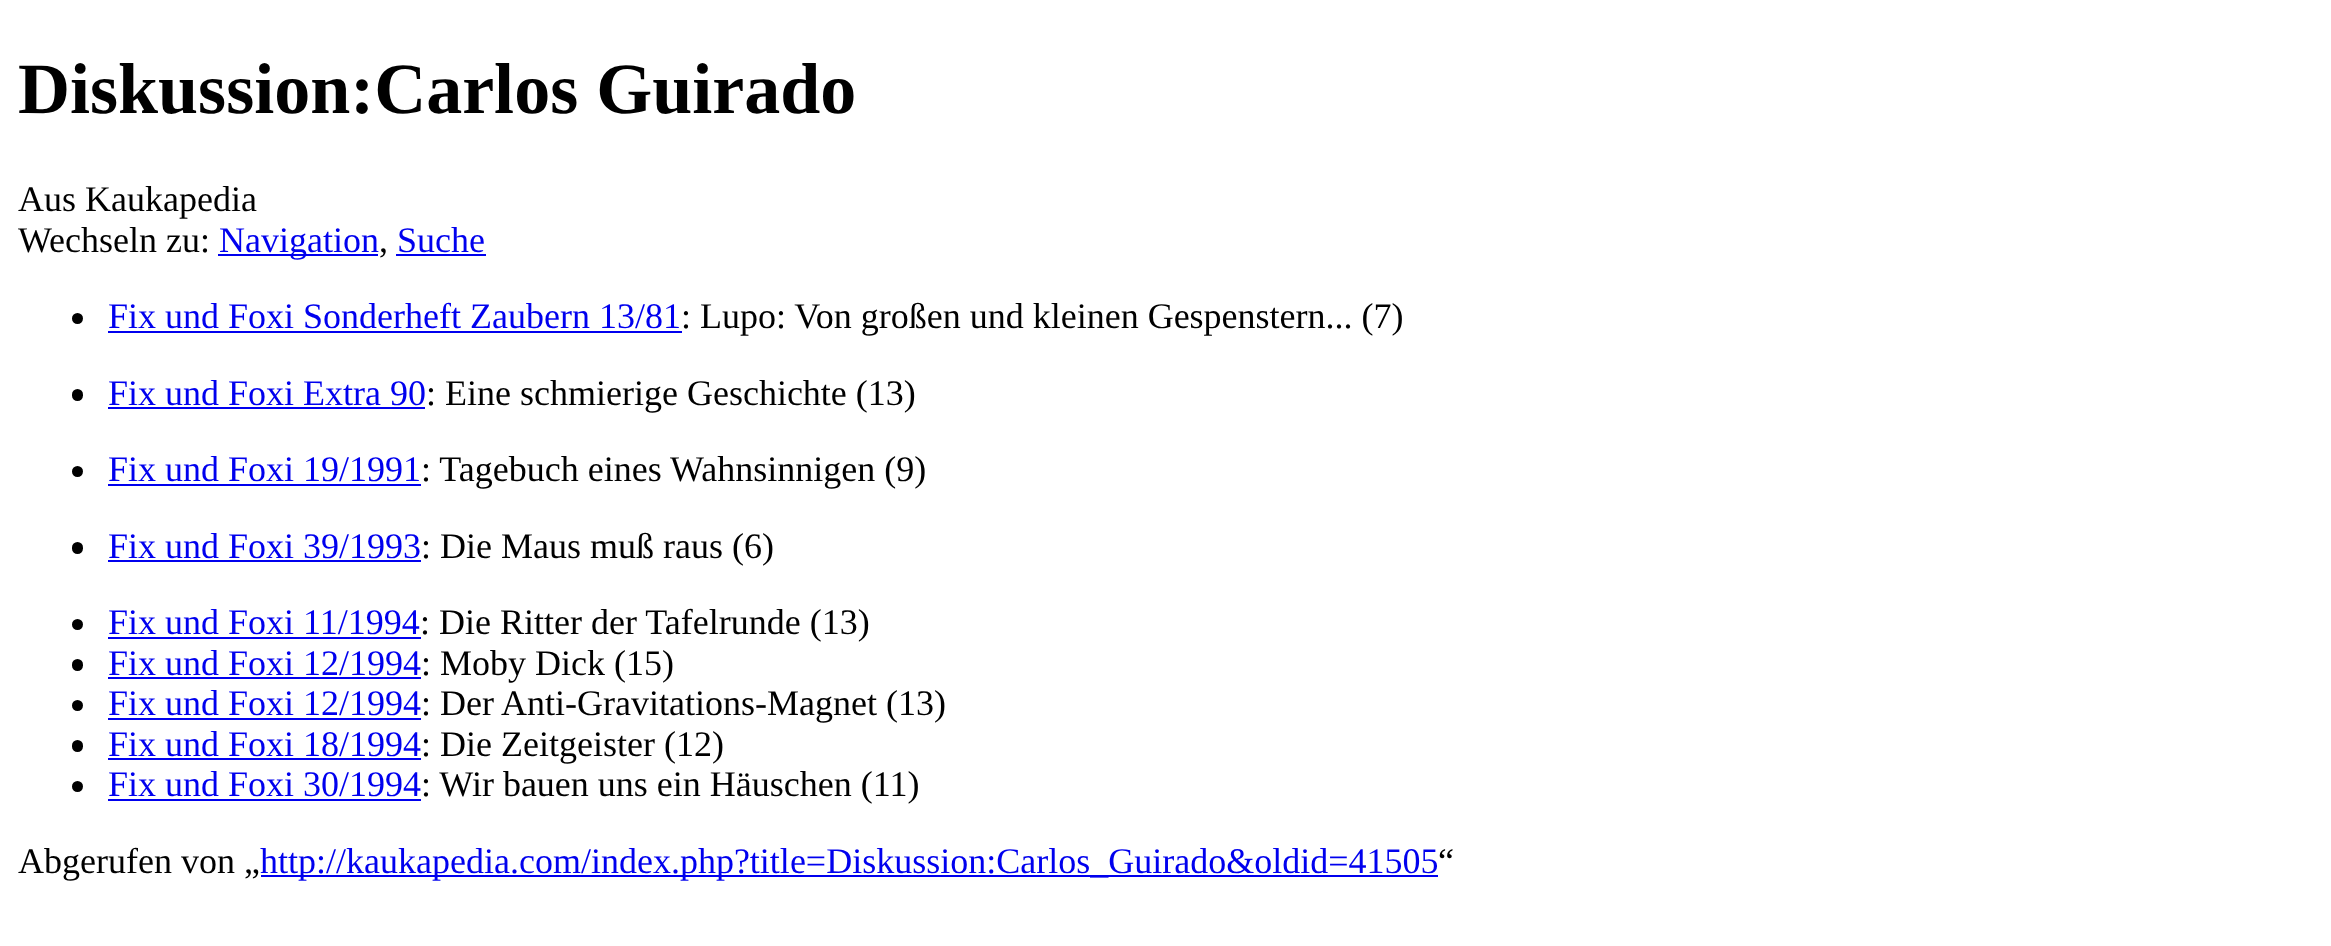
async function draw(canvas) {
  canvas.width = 2331
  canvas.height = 946
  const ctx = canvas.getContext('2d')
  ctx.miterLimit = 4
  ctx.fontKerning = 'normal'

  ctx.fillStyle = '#fff'
  ctx.fillRect(0, 0, 2331, 946)
  ctx.font = 'bold 72px Liberation Serif'
  ctx.fillStyle = '#000'
  ctx.fillText('Diskussion:Carlos Guirado', 18, 113)
  ctx.font = '36px Liberation Serif'
  ctx.fillText('Aus Kaukapedia', 18, 211)
  ctx.fillText('Wechseln zu:', 18, 252)
  ctx.fillStyle = '#00e'
  ctx.fillRect(218, 254, 160, 2)
  ctx.fillText('Navigation', 219, 252)
  ctx.fillStyle = '#000'
  ctx.fillText(',', 379, 252)
  ctx.fillStyle = '#00e'
  ctx.fillText('Suche', 397, 252)
  ctx.fillRect(396, 254, 90, 2)
  ctx.fillStyle = '#000'
  ctx.beginPath()
  ctx.arc(77.5, 318.5, 5.5, 0, 2 * Math.PI)
  ctx.fill()
  ctx.fillStyle = '#00e'
  ctx.fillText('Fix und Foxi Sonderheft Zaubern 13/81', 108, 328)
  ctx.fillRect(108, 331, 574, 2)
  ctx.fillStyle = '#000'
  ctx.fillText(': Lupo: Von großen und kleinen Gespenstern... (7)', 681, 328)
  ctx.beginPath()
  ctx.roundRect(72, 389, 11, 12, 5.5)
  ctx.fill()
  ctx.fillStyle = '#00e'
  ctx.fillText('Fix und Foxi Extra 90', 108, 405)
  ctx.fillRect(108, 407, 317, 2)
  ctx.fillStyle = '#000'
  ctx.fillText(': Eine schmierige Geschichte (13)', 426, 405)
  ctx.beginPath()
  ctx.arc(77.5, 471.5, 5.5, 0, 2 * Math.PI)
  ctx.fill()
  ctx.fillStyle = '#00e'
  ctx.fillText('Fix und Foxi 19/1991', 108, 481)
  ctx.fillRect(108, 484, 313, 2)
  ctx.fillStyle = '#000'
  ctx.fillText(': Tagebuch eines Wahnsinnigen (9)', 421, 481)
  ctx.beginPath()
  ctx.roundRect(72, 542, 11, 12, 5.5)
  ctx.fill()
  ctx.fillStyle = '#00e'
  ctx.fillText('Fix und Foxi 39/1993', 108, 558)
  ctx.fillRect(108, 560, 313, 2)
  ctx.fillStyle = '#000'
  ctx.fillText(': Die Maus muß raus (6)', 421, 558)
  ctx.beginPath()
  ctx.arc(77.5, 624.5, 5.5, 0, 2 * Math.PI)
  ctx.fill()
  ctx.fillStyle = '#00e'
  ctx.fillText('Fix und Foxi 11/1994', 108, 634)
  ctx.fillRect(108, 637, 313, 2)
  ctx.fillStyle = '#000'
  ctx.fillText(': Die Ritter der Tafelrunde (13)', 420, 634)
  ctx.beginPath()
  ctx.roundRect(72, 659, 11, 12, 5.5)
  ctx.fill()
  ctx.fillStyle = '#00e'
  ctx.fillText('Fix und Foxi 12/1994', 108, 675)
  ctx.fillRect(108, 677, 313, 2)
  ctx.fillStyle = '#000'
  ctx.fillText(': Moby Dick (15)', 421, 675)
  ctx.beginPath()
  ctx.arc(77.5, 705.5, 5.5, 0, 2 * Math.PI)
  ctx.fill()
  ctx.fillStyle = '#00e'
  ctx.fillText('Fix und Foxi 12/1994', 108, 715)
  ctx.fillRect(108, 718, 313, 2)
  ctx.fillStyle = '#000'
  ctx.fillText(': Der Anti-Gravitations-Magnet (13)', 421, 715)
  ctx.beginPath()
  ctx.roundRect(72, 740, 11, 12, 5.5)
  ctx.fill()
  ctx.fillStyle = '#00e'
  ctx.fillText('Fix und Foxi 18/1994', 108, 756)
  ctx.fillRect(108, 758, 313, 2)
  ctx.fillStyle = '#000'
  ctx.fillText(': Die Zeitgeister (12)', 421, 756)
  ctx.beginPath()
  ctx.arc(77.5, 786.5, 5.5, 0, 2 * Math.PI)
  ctx.fill()
  ctx.fillStyle = '#00e'
  ctx.fillText('Fix und Foxi 30/1994', 108, 796)
  ctx.fillRect(108, 799, 313, 2)
  ctx.fillStyle = '#000'
  ctx.fillText(': Wir bauen uns ein Häuschen (11)', 421, 796)
  ctx.fillText('Abgerufen von „', 18, 873)
  ctx.fillStyle = '#00e'
  ctx.fillRect(261, 875, 1177, 2)
  ctx.fillText('http://kaukapedia.com/index.php?title=Diskussion:Carlos_Guirado&oldid=41505', 260, 873)
  ctx.fillStyle = '#000'
  ctx.fillText('“', 1438, 873)
}

draw(document.querySelector('canvas'))
